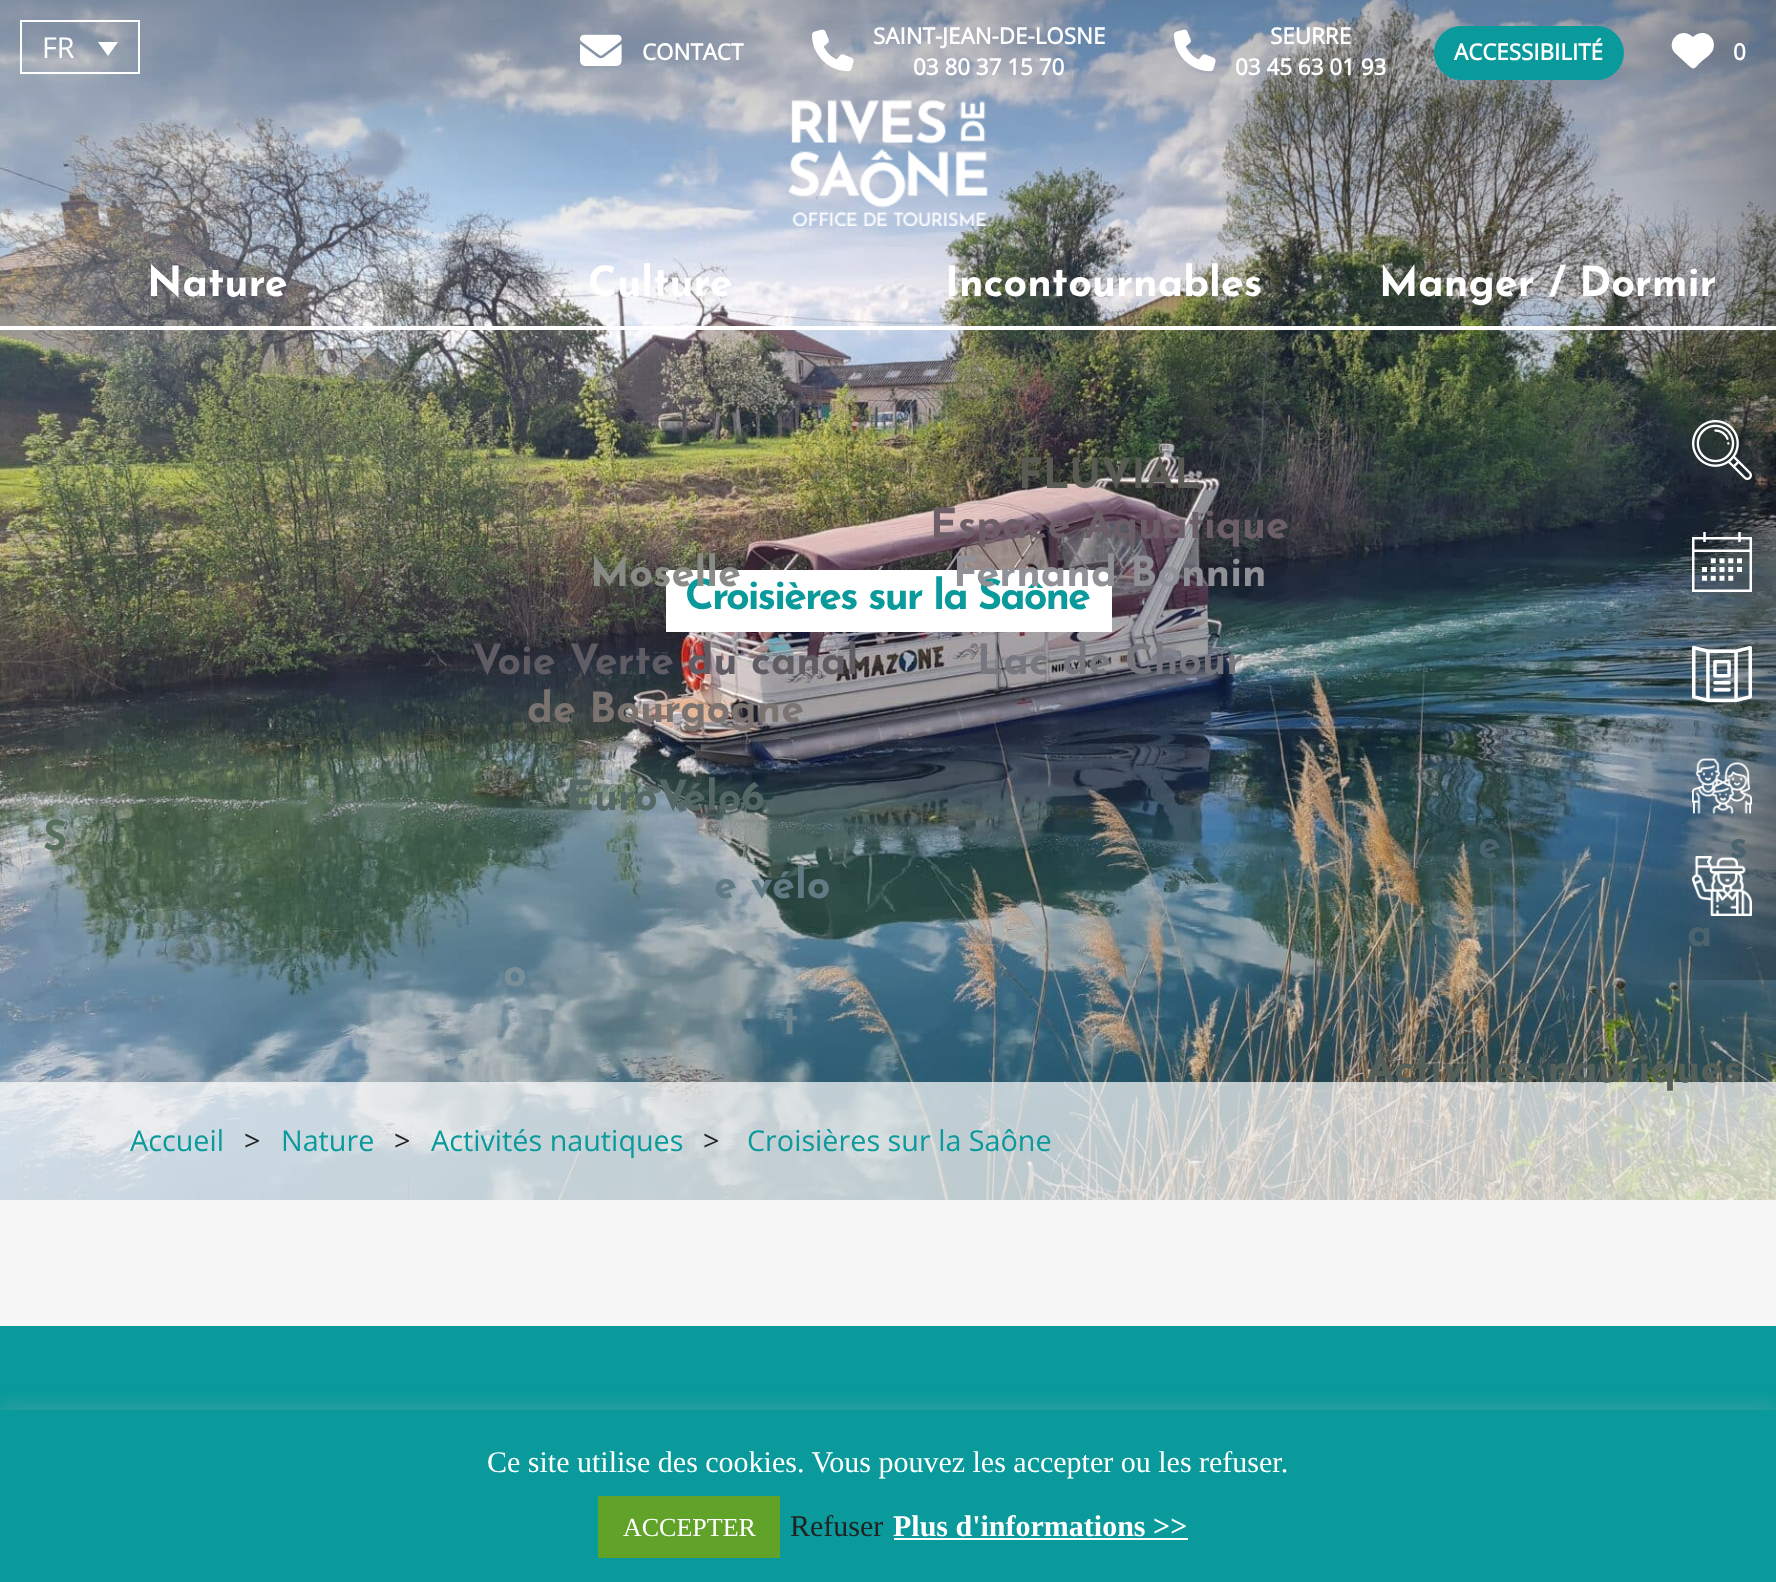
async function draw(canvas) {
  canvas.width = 1776
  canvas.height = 1582
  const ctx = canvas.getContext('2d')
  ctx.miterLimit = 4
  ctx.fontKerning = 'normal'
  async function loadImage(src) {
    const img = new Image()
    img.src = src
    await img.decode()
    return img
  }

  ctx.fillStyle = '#f7f7f7'
  ctx.fillRect(0, 0, 1776, 1582)
  ctx.drawImage(await loadImage('image5.png'), 0, 0, 1776, 1200)
  ctx.fillStyle = '#fff'
  ctx.fillRect(666, 570, 446, 62)
  ctx.letterSpacing = '-2px'
  ctx.font = 'bold 41.5px Josefin Sans'
  ctx.fillStyle = '#0a9a9b'
  ctx.fillText('Croisières sur la Saône', 685, 609)
  ctx.drawImage(await loadImage('image0.png'), 0, 0, 1776, 980)
  ctx.strokeStyle = '#fff'
  ctx.lineWidth = 2
  ctx.strokeRect(21, 21, 118, 52)
  ctx.letterSpacing = '0px'
  ctx.font = '28.75px Open Sans'
  ctx.fillStyle = '#fff'
  ctx.fillText('FR', 42, 58)
  ctx.beginPath()
  ctx.moveTo(98, 42)
  ctx.lineTo(118, 42)
  ctx.lineTo(108, 56)
  ctx.closePath()
  ctx.fill()
  ctx.drawImage(await loadImage('image1.png'), 580, 34, 42, 32)
  ctx.font = 'bold 22.4px Open Sans'
  ctx.fillText('CONTACT', 642, 60)
  ctx.drawImage(await loadImage('image2.png'), 812, 29, 42, 43)
  ctx.fillText('SAINT-JEAN-DE-LOSNE', 873, 44)
  ctx.fillText('03 80 37 15 70', 913, 75)
  ctx.drawImage(await loadImage('image3.png'), 1174, 29, 42, 43)
  ctx.fillText('SEURRE', 1270, 44)
  ctx.fillText('03 45 63 01 93', 1235, 75)
  ctx.fillStyle = '#0a9a9b'
  ctx.beginPath()
  ctx.roundRect(1434, 26, 190, 54, 27)
  ctx.fill()
  ctx.fillStyle = '#fff'
  ctx.fillText('ACCESSIBILITÉ', 1454, 60)
  ctx.beginPath()
  ctx.moveTo(1676, 54)
  ctx.lineTo(1691, 68)
  ctx.lineTo(1676, 54)
  ctx.lineTo(1688, 65)
  ctx.bezierCurveTo(1695, 72, 1695, 67, 1702, 61)
  ctx.bezierCurveTo(1706, 58, 1711, 54, 1713, 50)
  ctx.bezierCurveTo(1718, 37, 1703, 27, 1693, 37)
  ctx.bezierCurveTo(1680, 25, 1664, 43, 1676, 54)
  ctx.closePath()
  ctx.fill()
  ctx.fillText('0', 1733, 60)
  ctx.drawImage(await loadImage('image4.png'), 788, 100, 200, 126)
  ctx.font = 'bold 41.5px Josefin Sans'
  ctx.fillText('Culture', 588, 296)
  ctx.fillText('Incontournables', 945, 296)
  ctx.fillStyle = '#5b5b55'
  ctx.fillText('FLUVIAL', 1018, 488)
  ctx.fillStyle = '#fff'
  ctx.fillText('Nature', 147, 296)
  ctx.fillStyle = '#596f5d'
  ctx.fillText('S', 43, 850)
  ctx.fillStyle = '#898c85'
  ctx.fillText('Moselle', 590, 586)
  ctx.fillStyle = '#605c63'
  ctx.fillText('Voie Verte du canal', 472, 674)
  ctx.fillStyle = '#7b7370'
  ctx.fillText('de Bourgogne', 527, 722)
  ctx.fillStyle = '#556866'
  ctx.fillText('EuroVélo6', 566, 810)
  ctx.fillStyle = '#607b84'
  ctx.fillText('e vélo', 714, 898)
  ctx.fillStyle = '#7b8f99'
  ctx.fillText('o', 503, 986)
  ctx.fillStyle = '#6c8692'
  ctx.fillText('t', 782, 1034)
  ctx.fillStyle = '#6c5f68'
  ctx.fillText('Espace Aquatique', 930, 538)
  ctx.fillStyle = '#909097'
  ctx.fillText('Fernand Bonnin', 953, 586)
  ctx.fillStyle = '#76777f'
  ctx.fillText('Lac de Chour', 977, 674)
  ctx.fillStyle = '#4b636e'
  ctx.fillText('e', 1478, 858)
  ctx.fillText('s', 1729, 858)
  ctx.fillText('a', 1687, 946)
  ctx.fillStyle = '#ffffffb3'
  ctx.fillRect(0, 1082, 1776, 118)
  ctx.fillStyle = '#55605a'
  ctx.fillText('Activités nautiques', 1366, 1082)
  ctx.fillStyle = '#fff'
  ctx.fillText('Manger / Dormir', 1379, 296)
  ctx.fillRect(0, 326, 1776, 4)
  ctx.font = '28.75px Open Sans'
  ctx.fillStyle = '#0a9a9b'
  ctx.fillText('Accueil', 130, 1151)
  ctx.fillStyle = '#222'
  ctx.fillText('>', 244, 1151)
  ctx.fillStyle = '#0a9a9b'
  ctx.fillText('Nature', 281, 1151)
  ctx.fillStyle = '#222'
  ctx.fillText('>', 394, 1151)
  ctx.fillStyle = '#0a9a9b'
  ctx.fillText('Activités nautiques', 431, 1151)
  ctx.fillStyle = '#222'
  ctx.fillText('>', 703, 1151)
  ctx.fillStyle = '#0a9a9b'
  ctx.fillText('Croisières sur la Saône', 747, 1151)
  ctx.drawImage(await loadImage('image6.png'), 1692, 420, 60, 60)
  ctx.drawImage(await loadImage('image7.png'), 1692, 532, 60, 60)
  ctx.drawImage(await loadImage('image8.png'), 1692, 645, 60, 58)
  ctx.drawImage(await loadImage('image9.png'), 1692, 758, 60, 57)
  ctx.drawImage(await loadImage('image10.png'), 1692, 856, 60, 60)
  ctx.fillRect(0, 1326, 1776, 84)
  ctx.fillStyle = '#acabab4d'
  ctx.filter = 'blur(10px)'
  ctx.beginPath()
  ctx.rect(0, 1408, 1776, 172)
  ctx.fill()
  ctx.filter = 'none'
  ctx.fillStyle = '#0a9a9b'
  ctx.fillRect(0, 1410, 1776, 172)
  ctx.font = '30px Liberation Serif'
  ctx.fillStyle = '#fff'
  ctx.fillText('Ce site utilise des cookies. Vous pouvez les accepter ou les refuser.', 487, 1472)
  ctx.fillStyle = '#61a229'
  ctx.fillRect(598, 1496, 182, 62)
  ctx.font = '26px Liberation Serif'
  ctx.fillStyle = '#fff'
  ctx.fillText('ACCEPTER', 623, 1536)
  ctx.font = '30px Liberation Serif'
  ctx.fillStyle = '#222'
  ctx.fillText('Refuser', 790, 1536)
  ctx.font = 'bold 30px Liberation Serif'
  ctx.fillStyle = '#fff'
  ctx.fillText('Plus d\'informations >>', 893, 1536)
  ctx.fillRect(894, 1538, 294, 2)
}

draw(document.querySelector('canvas'))
